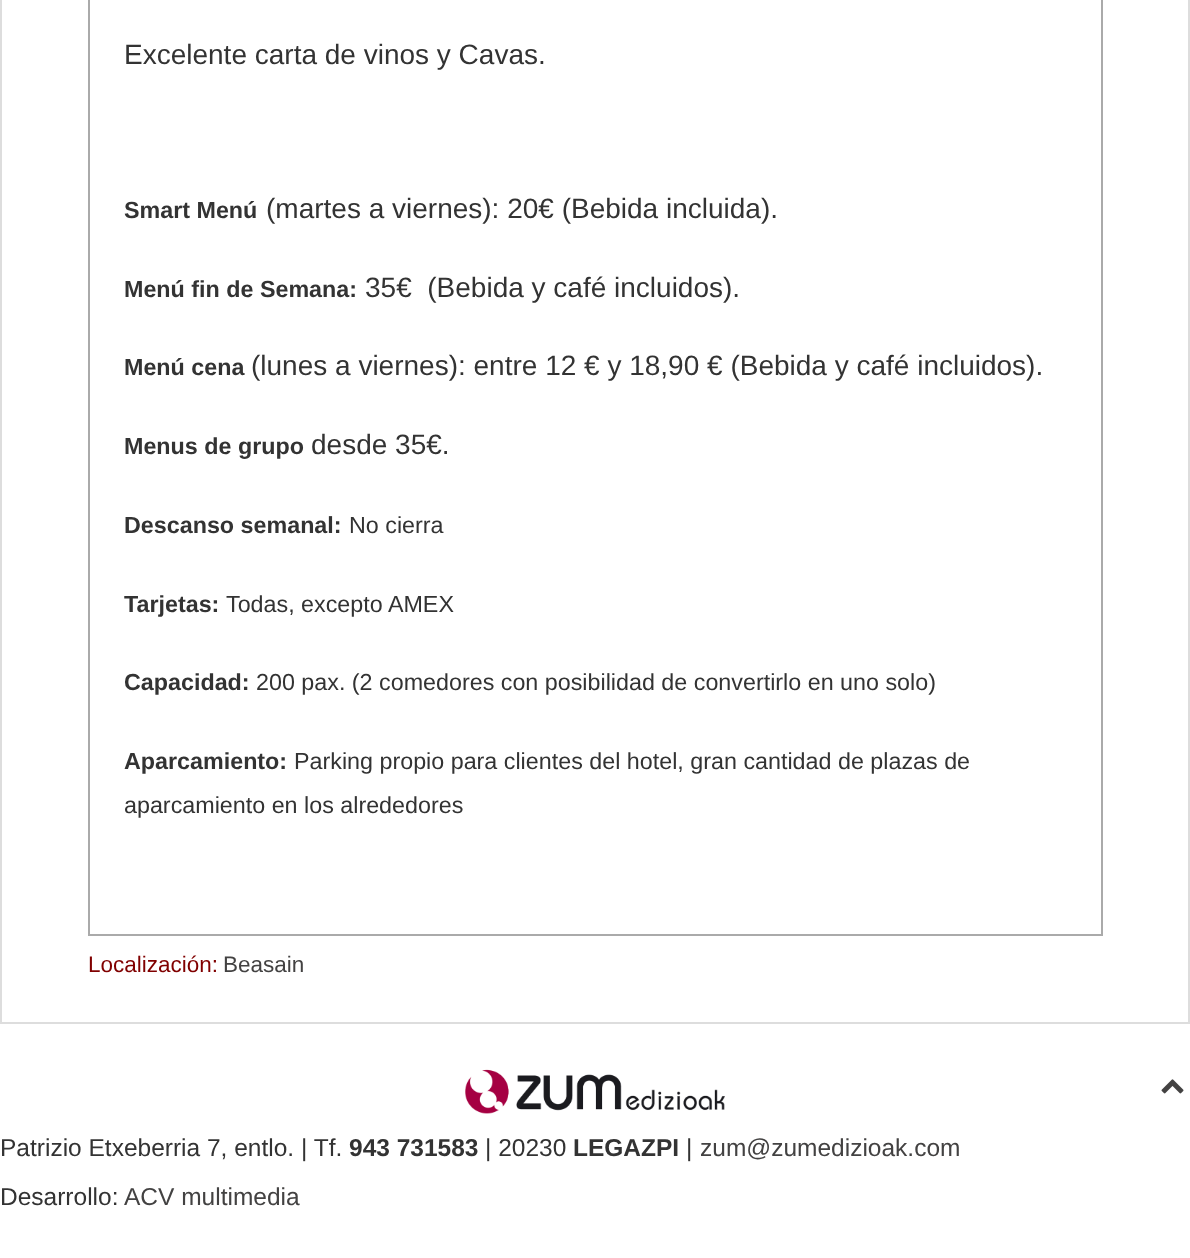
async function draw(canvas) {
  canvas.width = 1190
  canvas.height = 1258
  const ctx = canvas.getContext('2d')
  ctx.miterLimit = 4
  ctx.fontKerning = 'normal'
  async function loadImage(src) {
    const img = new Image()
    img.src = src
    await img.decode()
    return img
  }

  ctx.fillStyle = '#fff'
  ctx.fillRect(0, 0, 1190, 1258)
  ctx.strokeStyle = '#ddd'
  ctx.lineWidth = 2
  ctx.strokeRect(1, -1, 1188, 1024)
  ctx.strokeStyle = '#aaa'
  ctx.strokeRect(89, -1, 1013, 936)
  ctx.font = '28px Liberation Sans'
  ctx.fillStyle = '#333'
  ctx.fillText('Excelente carta de vinos y Cavas.', 124, 64)
  ctx.font = 'bold 23.3px Liberation Sans'
  ctx.fillText('Smart Menú', 124, 218)
  ctx.font = '28px Liberation Sans'
  ctx.fillText('(martes a viernes): 20€ (Bebida incluida).', 266, 218)
  ctx.font = 'bold 23.3px Liberation Sans'
  ctx.fillText('Menú fin de Semana:', 124, 297)
  ctx.font = '28px Liberation Sans'
  ctx.fillText('35€  (Bebida y café incluidos).', 365, 297)
  ctx.font = 'bold 23.3px Liberation Sans'
  ctx.fillText('Menú cena', 124, 375)
  ctx.font = '28px Liberation Sans'
  ctx.fillText('(lunes a viernes): entre 12 € y 18,90 € (Bebida y café incluidos).', 251, 375)
  ctx.font = 'bold 23.3px Liberation Sans'
  ctx.fillText('Menus de grupo', 124, 454)
  ctx.font = '28px Liberation Sans'
  ctx.fillText('desde 35€.', 311, 454)
  ctx.font = 'bold 23.3px Liberation Sans'
  ctx.fillText('Descanso semanal:', 124, 533)
  ctx.font = '23.3px Liberation Sans'
  ctx.fillText('No cierra', 349, 533)
  ctx.font = 'bold 23.3px Liberation Sans'
  ctx.fillText('Tarjetas:', 124, 612)
  ctx.font = '23.3px Liberation Sans'
  ctx.fillText('Todas, excepto AMEX', 226, 612)
  ctx.font = 'bold 23.3px Liberation Sans'
  ctx.fillText('Capacidad:', 124, 690)
  ctx.font = '23.3px Liberation Sans'
  ctx.fillText('200 pax. (2 comedores con posibilidad de convertirlo en uno solo)', 256, 690)
  ctx.font = 'bold 23.3px Liberation Sans'
  ctx.fillText('Aparcamiento:', 124, 769)
  ctx.font = '23.3px Liberation Sans'
  ctx.fillText('Parking propio para clientes del hotel, gran cantidad de plazas de', 294, 769)
  ctx.fillText('aparcamiento en los alrededores', 124, 813)
  ctx.font = '22.5px Liberation Sans'
  ctx.fillStyle = '#800000'
  ctx.fillText('Localización:', 88, 972)
  ctx.fillStyle = '#434242'
  ctx.fillText('Beasain', 223, 972)
  ctx.drawImage(await loadImage('image0.png'), 1161, 1079, 23, 15)
  ctx.drawImage(await loadImage('image1.png'), 465, 1069, 260, 45)
  ctx.font = '24.5px Liberation Sans'
  ctx.fillStyle = '#333'
  ctx.fillText('Patrizio Etxeberria 7, entlo. | Tf.', 0, 1156)
  ctx.font = 'bold 24.5px Liberation Sans'
  ctx.fillText('943 731583', 349, 1156)
  ctx.font = '24.5px Liberation Sans'
  ctx.fillText('| 20230', 485, 1156)
  ctx.font = 'bold 24.5px Liberation Sans'
  ctx.fillText('LEGAZPI', 573, 1156)
  ctx.font = '24.5px Liberation Sans'
  ctx.fillText('|', 686, 1156)
  ctx.fillStyle = '#434242'
  ctx.fillText('zum@zumedizioak.com', 700, 1156)
  ctx.fillStyle = '#333'
  ctx.fillText('Desarrollo:', 0, 1205)
  ctx.fillStyle = '#434242'
  ctx.fillText('ACV multimedia', 124, 1205)
}

draw(document.querySelector('canvas'))
